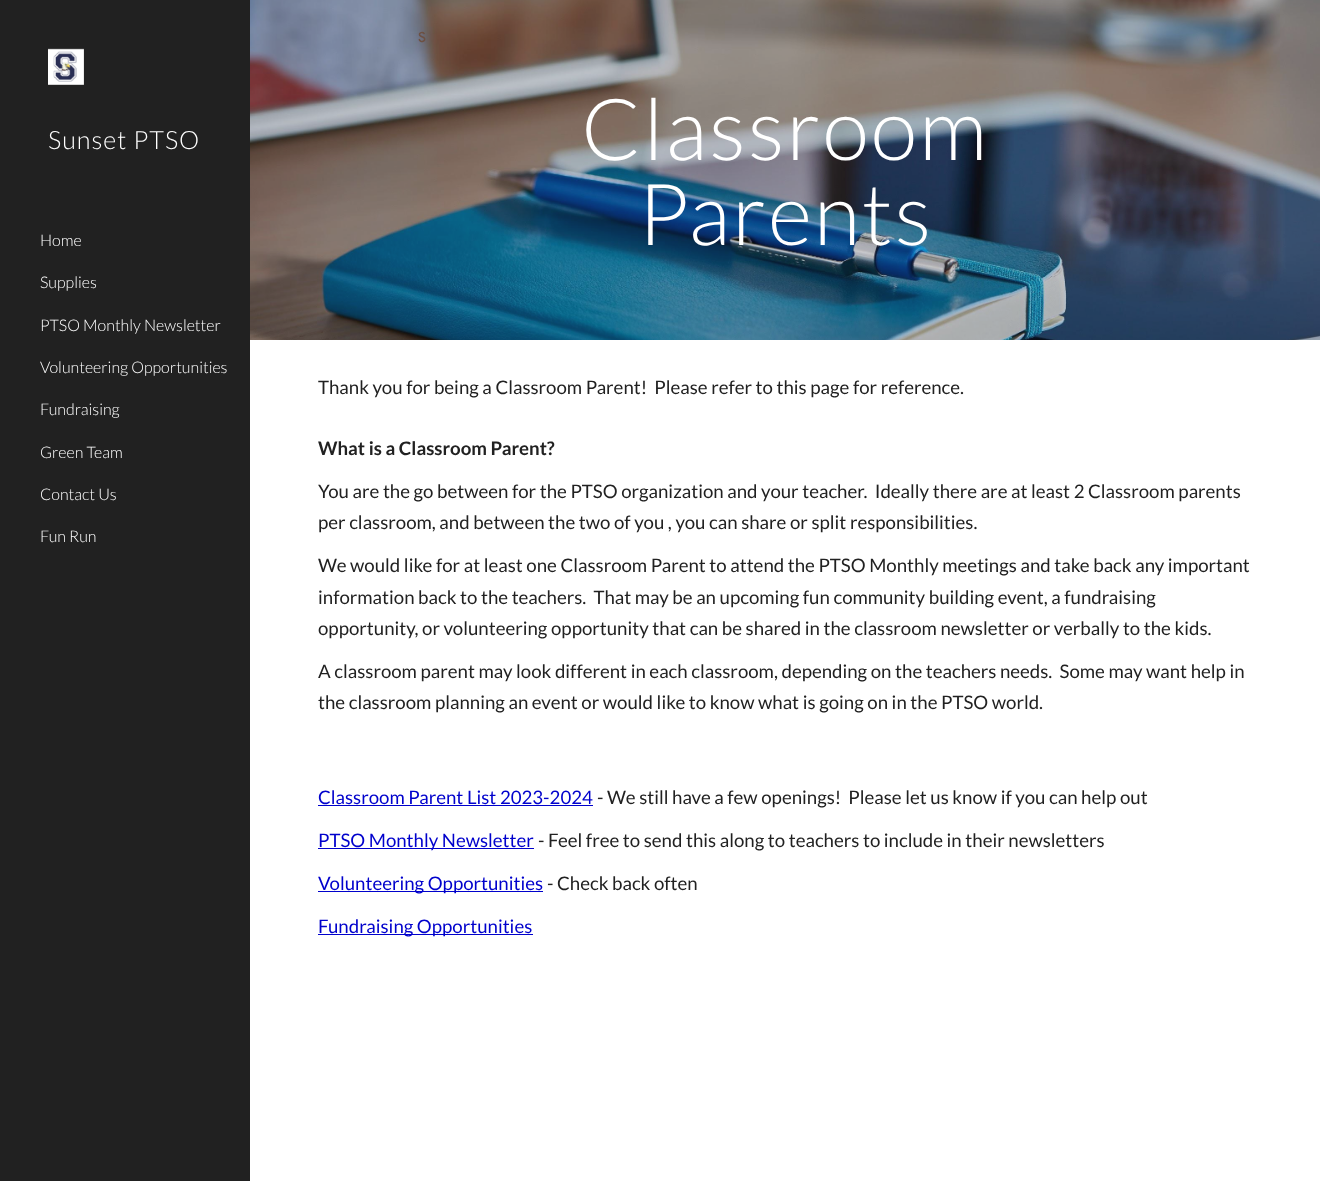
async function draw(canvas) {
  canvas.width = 1320
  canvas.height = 1181
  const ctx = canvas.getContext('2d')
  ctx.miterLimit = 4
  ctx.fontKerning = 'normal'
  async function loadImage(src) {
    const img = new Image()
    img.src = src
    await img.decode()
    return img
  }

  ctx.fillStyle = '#fff'
  ctx.fillRect(0, 0, 1320, 1181)
  ctx.drawImage(await loadImage('image1.png'), 250, 0, 1070, 340)
  ctx.font = '500 14px Google Sans'
  ctx.fillStyle = '#6d5042'
  ctx.fillText('S', 418, 42)
  ctx.fillStyle = '#212121'
  ctx.fillRect(0, 0, 250, 1181)
  ctx.drawImage(await loadImage('image0.png'), 48, 48, 36, 37)
  ctx.letterSpacing = '1px'
  ctx.font = '300 25.25px Lato'
  ctx.fillStyle = '#fff'
  ctx.fillText('Sunset PTSO', 48, 149)
  ctx.letterSpacing = '0px'
  ctx.font = '300 16px Lato'
  ctx.fillText('Home', 40, 246)
  ctx.fillText('Supplies', 40, 288)
  ctx.fillText('PTSO Monthly Newsletter', 40, 331)
  ctx.fillText('Volunteering Opportunities', 40, 373)
  ctx.fillText('Fundraising', 40, 415)
  ctx.fillText('Green Team', 40, 458)
  ctx.fillText('Contact Us', 40, 500)
  ctx.fillText('Fun Run', 40, 542)
  ctx.letterSpacing = '2px'
  ctx.font = '300 85.5px Lato'
  ctx.fillText('Classroom', 581, 160)
  ctx.fillText('Parents', 638, 245)
  ctx.letterSpacing = '0px'
  ctx.font = '18.65px Lato'
  ctx.fillStyle = '#212121'
  ctx.fillText('Thank you for being a Classroom Parent!  Please refer to this page for reference.', 318, 394)
  ctx.font = 'bold 18.65px Lato'
  ctx.fillText('What is a Classroom Parent?', 318, 455)
  ctx.font = '18.65px Lato'
  ctx.fillText('You are the go between for the PTSO organization and your teacher.  Ideally there are at least 2 Classroom parents', 318, 498)
  ctx.fillText('per classroom, and between the two of you , you can share or split responsibilities.', 318, 529)
  ctx.fillText('We would like for at least one Classroom Parent to attend the PTSO Monthly meetings and take back any important', 318, 572)
  ctx.fillText('information back to the teachers.  That may be an upcoming fun community building event, a fundraising', 318, 604)
  ctx.fillText('opportunity, or volunteering opportunity that can be shared in the classroom newsletter or verbally to the kids.', 318, 635)
  ctx.fillText('A classroom parent may look different in each classroom, depending on the teachers needs.  Some may want help in', 318, 678)
  ctx.fillText('the classroom planning an event or would like to know what is going on in the PTSO world.', 318, 709)
  ctx.fillStyle = '#0001cc'
  ctx.fillText('Classroom Parent List 2023-2024', 318, 804)
  ctx.fillRect(318, 805, 275, 1)
  ctx.fillStyle = '#212121'
  ctx.fillText('- We still have a few openings!  Please let us know if you can help out', 597, 804)
  ctx.fillStyle = '#0001cc'
  ctx.fillRect(318, 848, 216, 1)
  ctx.fillText('PTSO Monthly Newsletter', 318, 847)
  ctx.fillStyle = '#212121'
  ctx.fillText('- Feel free to send this along to teachers to include in their newsletters', 538, 847)
  ctx.fillStyle = '#0001cc'
  ctx.fillRect(318, 891, 225, 1)
  ctx.fillText('Volunteering Opportunities', 318, 890)
  ctx.fillStyle = '#212121'
  ctx.fillText('- Check back often', 547, 890)
  ctx.fillStyle = '#0001cc'
  ctx.fillRect(318, 934, 215, 1)
  ctx.fillText('Fundraising Opportunities', 318, 933)
}

draw(document.querySelector('canvas'))
